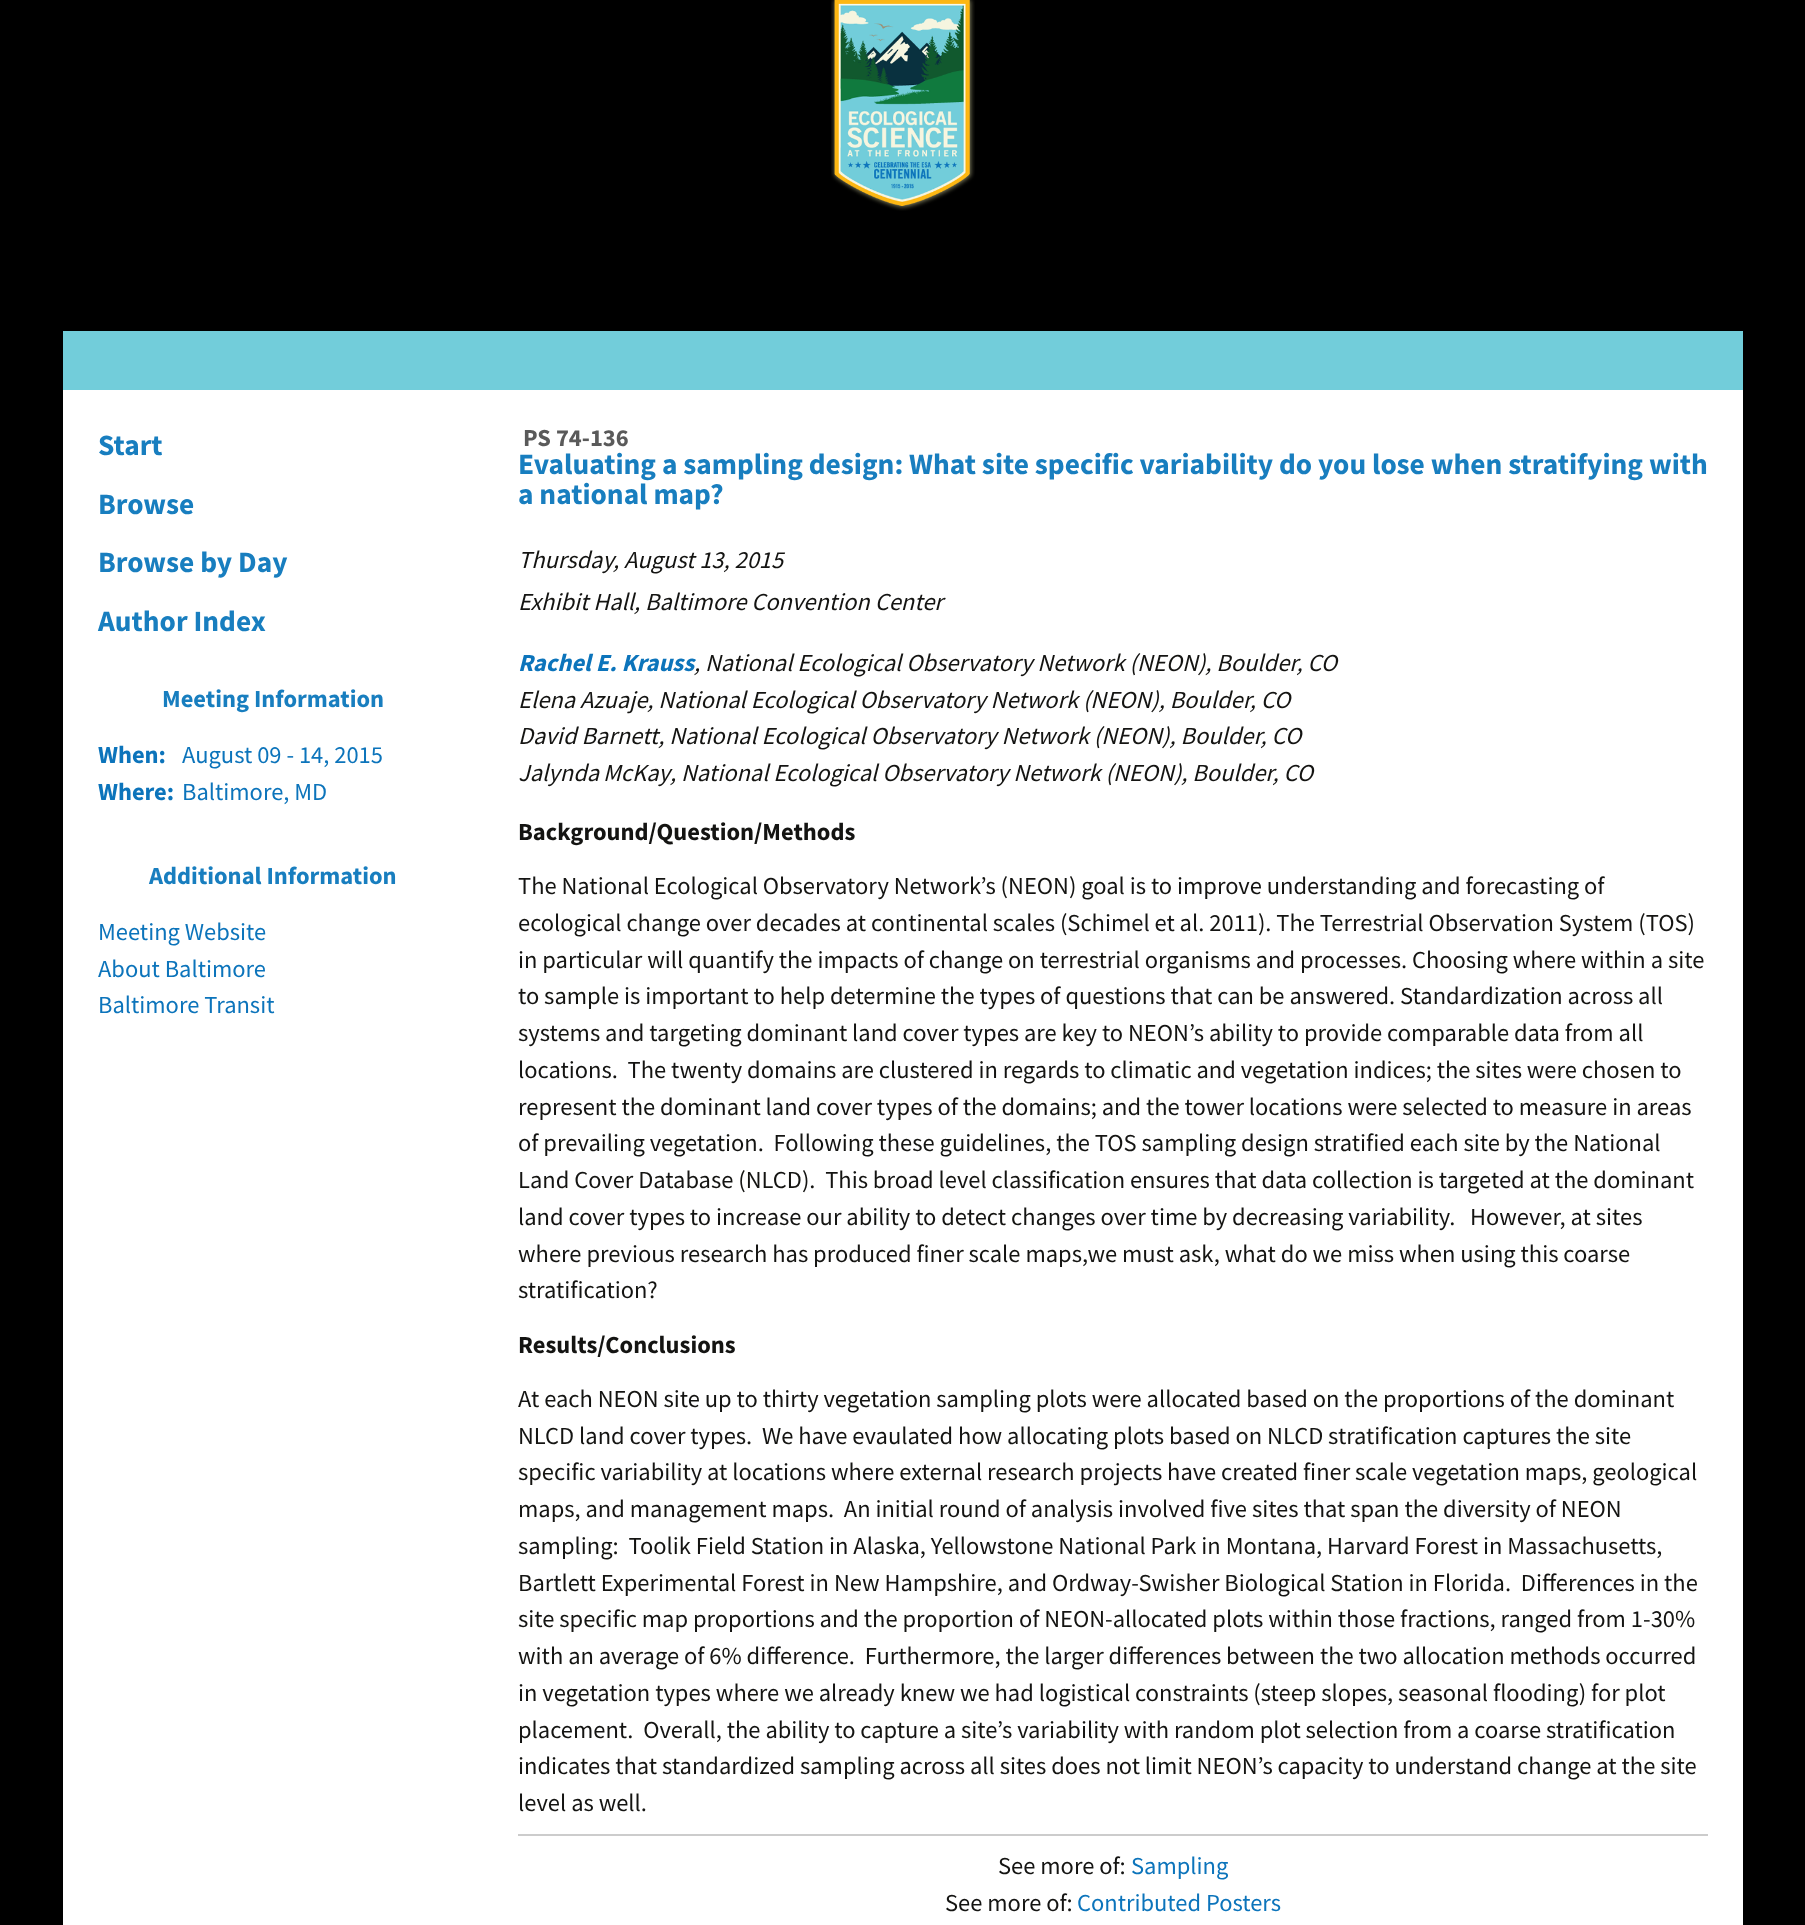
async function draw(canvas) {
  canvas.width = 1805
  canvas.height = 1925
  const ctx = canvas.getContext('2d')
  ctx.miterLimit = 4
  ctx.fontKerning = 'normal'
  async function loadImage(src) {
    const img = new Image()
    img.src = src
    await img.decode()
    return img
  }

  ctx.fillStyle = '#000'
  ctx.fillRect(0, 0, 1805, 1925)
  ctx.fillStyle = '#72cdda'
  ctx.fillRect(63, 331, 1680, 59)
  ctx.drawImage(await loadImage('image0.png'), 831, 0, 144, 211)
  ctx.fillStyle = '#fff'
  ctx.fillRect(63, 390, 1680, 1535)
  ctx.font = 'bold 29.4px Source Sans Pro'
  ctx.fillStyle = '#187ebf'
  ctx.fillText('Start', 98, 455)
  ctx.fillText('Browse', 98, 514)
  ctx.fillText('Browse by Day', 98, 572)
  ctx.fillText('Author Index', 98, 631)
  ctx.font = 'bold 24.5px Source Sans Pro'
  ctx.fillText('Meeting Information', 162, 707)
  ctx.fillStyle = '#0c74bb'
  ctx.fillText('When:', 98, 763)
  ctx.font = '24.5px Source Sans Pro'
  ctx.fillText('August 09 - 14, 2015', 182, 763)
  ctx.font = 'bold 24.5px Source Sans Pro'
  ctx.fillText('Where:', 98, 800)
  ctx.font = '24.5px Source Sans Pro'
  ctx.fillText('Baltimore, MD', 182, 800)
  ctx.font = 'bold 24.5px Source Sans Pro'
  ctx.fillStyle = '#187ebf'
  ctx.fillText('Additional Information', 149, 884)
  ctx.font = '24.5px Source Sans Pro'
  ctx.fillStyle = '#0c74bb'
  ctx.fillText('Meeting Website', 98, 940)
  ctx.fillText('About Baltimore', 98, 977)
  ctx.fillText('Baltimore Transit', 98, 1013)
  ctx.font = 'bold 24.5px Source Sans Pro'
  ctx.fillStyle = '#5a5a5a'
  ctx.fillText('PS 74-136', 523, 446)
  ctx.font = 'bold 29.4px Source Sans Pro'
  ctx.fillStyle = '#187ebf'
  ctx.fillText('Evaluating a sampling design: What site specific variability do you lose when stratifying with', 518, 474)
  ctx.fillText('a national map?', 518, 504)
  ctx.font = 'italic 24.5px Source Sans Pro'
  ctx.fillStyle = '#141412'
  ctx.fillText('Thursday, August 13, 2015', 518, 568)
  ctx.fillText('Exhibit Hall, Baltimore Convention Center', 518, 610)
  ctx.font = 'italic bold 24.5px Source Sans Pro'
  ctx.fillStyle = '#0c74bb'
  ctx.fillText('Rachel E. Krauss', 518, 671)
  ctx.font = 'italic 24.5px Source Sans Pro'
  ctx.fillStyle = '#141412'
  ctx.fillText(', National Ecological Observatory Network (NEON), Boulder, CO', 694, 671)
  ctx.fillText('Elena Azuaje, National Ecological Observatory Network (NEON), Boulder, CO', 518, 708)
  ctx.fillText('David Barnett, National Ecological Observatory Network (NEON), Boulder, CO', 518, 744)
  ctx.wordSpacing = '-1px'
  ctx.fillText('Jalynda McKay', 518, 781)
  ctx.wordSpacing = '0px'
  ctx.fillText(', National Ecological Observatory Network (NEON), Boulder, CO', 670, 781)
  ctx.font = 'bold 24.5px Source Sans Pro'
  ctx.fillText('Background/Question/Methods', 518, 840)
  ctx.font = '24.5px Source Sans Pro'
  ctx.fillText('The National Ecological Observatory Network’s (NEON) goal is to improve understanding and forecasting of', 518, 894)
  ctx.fillText('ecological change over decades at continental scales (Schimel et al. 2011). The Terrestrial Observation System (TOS)', 518, 931)
  ctx.fillText('in particular will quantify the impacts of change on terrestrial organisms and processes. Choosing where within a site', 518, 968)
  ctx.fillText('to sample is important to help determine the types of questions that can be answered. Standardization across all', 518, 1004)
  ctx.fillText('systems and targeting dominant land cover types are key to NEON’s ability to provide comparable data from all', 518, 1041)
  ctx.fillText('locations.  The twenty domains are clustered in regards to climatic and vegetation indices; the sites were chosen to', 518, 1078)
  ctx.fillText('represent the dominant land cover types of the domains; and the tower locations were selected to measure in areas', 518, 1115)
  ctx.fillText('of prevailing vegetation.  Following these guidelines, the TOS sampling design stratified each site by the National', 518, 1151)
  ctx.fillText('Land Cover Database (NLCD).  This broad level classification ensures that data collection is targeted at the dominant', 518, 1188)
  ctx.fillText('land cover types to increase our ability to detect changes over time by decreasing variability.   However, at sites', 518, 1225)
  ctx.fillText('where previous research has produced finer scale maps,we must ask, what do we miss when using this coarse', 518, 1262)
  ctx.fillText('stratification?', 518, 1298)
  ctx.font = 'bold 24.5px Source Sans Pro'
  ctx.fillText('Results/Conclusions', 518, 1353)
  ctx.font = '24.5px Source Sans Pro'
  ctx.fillText('At each NEON site up to thirty vegetation sampling plots were allocated based on the proportions of the dominant', 518, 1407)
  ctx.fillText('NLCD land cover types.  We have evaulated how allocating plots based on NLCD stratification captures the site', 518, 1444)
  ctx.fillText('specific variability at locations where external research projects have created finer scale vegetation maps, geological', 518, 1480)
  ctx.fillText('maps, and management maps.  An initial round of analysis involved five sites that span the diversity of NEON', 518, 1517)
  ctx.fillText('sampling:  Toolik Field Station in Alaska, Yellowstone National Park in Montana, Harvard Forest in Massachusetts,', 518, 1554)
  ctx.fillText('Bartlett Experimental Forest in New Hampshire, and Ordway-Swisher Biological Station in Florida.  Differences in the', 518, 1591)
  ctx.fillText('site specific map proportions and the proportion of NEON-allocated plots within those fractions, ranged from 1-30%', 518, 1627)
  ctx.fillText('with an average of 6% difference.  Furthermore, the larger differences between the two allocation methods occurred', 518, 1664)
  ctx.fillText('in vegetation types where we already knew we had logistical constraints (steep slopes, seasonal flooding) for plot', 518, 1701)
  ctx.fillText('placement.  Overall, the ability to capture a site’s variability with random plot selection from a coarse stratification', 518, 1738)
  ctx.fillText('indicates that standardized sampling across all sites does not limit NEON’s capacity to understand change at the site', 518, 1774)
  ctx.fillText('level as well.', 518, 1811)
  ctx.fillStyle = '#ccc'
  ctx.fillRect(518, 1834, 1190, 2)
  ctx.fillStyle = '#141412'
  ctx.fillText('See more of:', 998, 1874)
  ctx.fillStyle = '#0c74bb'
  ctx.fillText('Sampling', 1131, 1874)
  ctx.fillStyle = '#141412'
  ctx.fillText('See more of:', 945, 1911)
  ctx.fillStyle = '#0c74bb'
  ctx.fillText('Contributed Posters', 1077, 1911)
}

draw(document.querySelector('canvas'))
